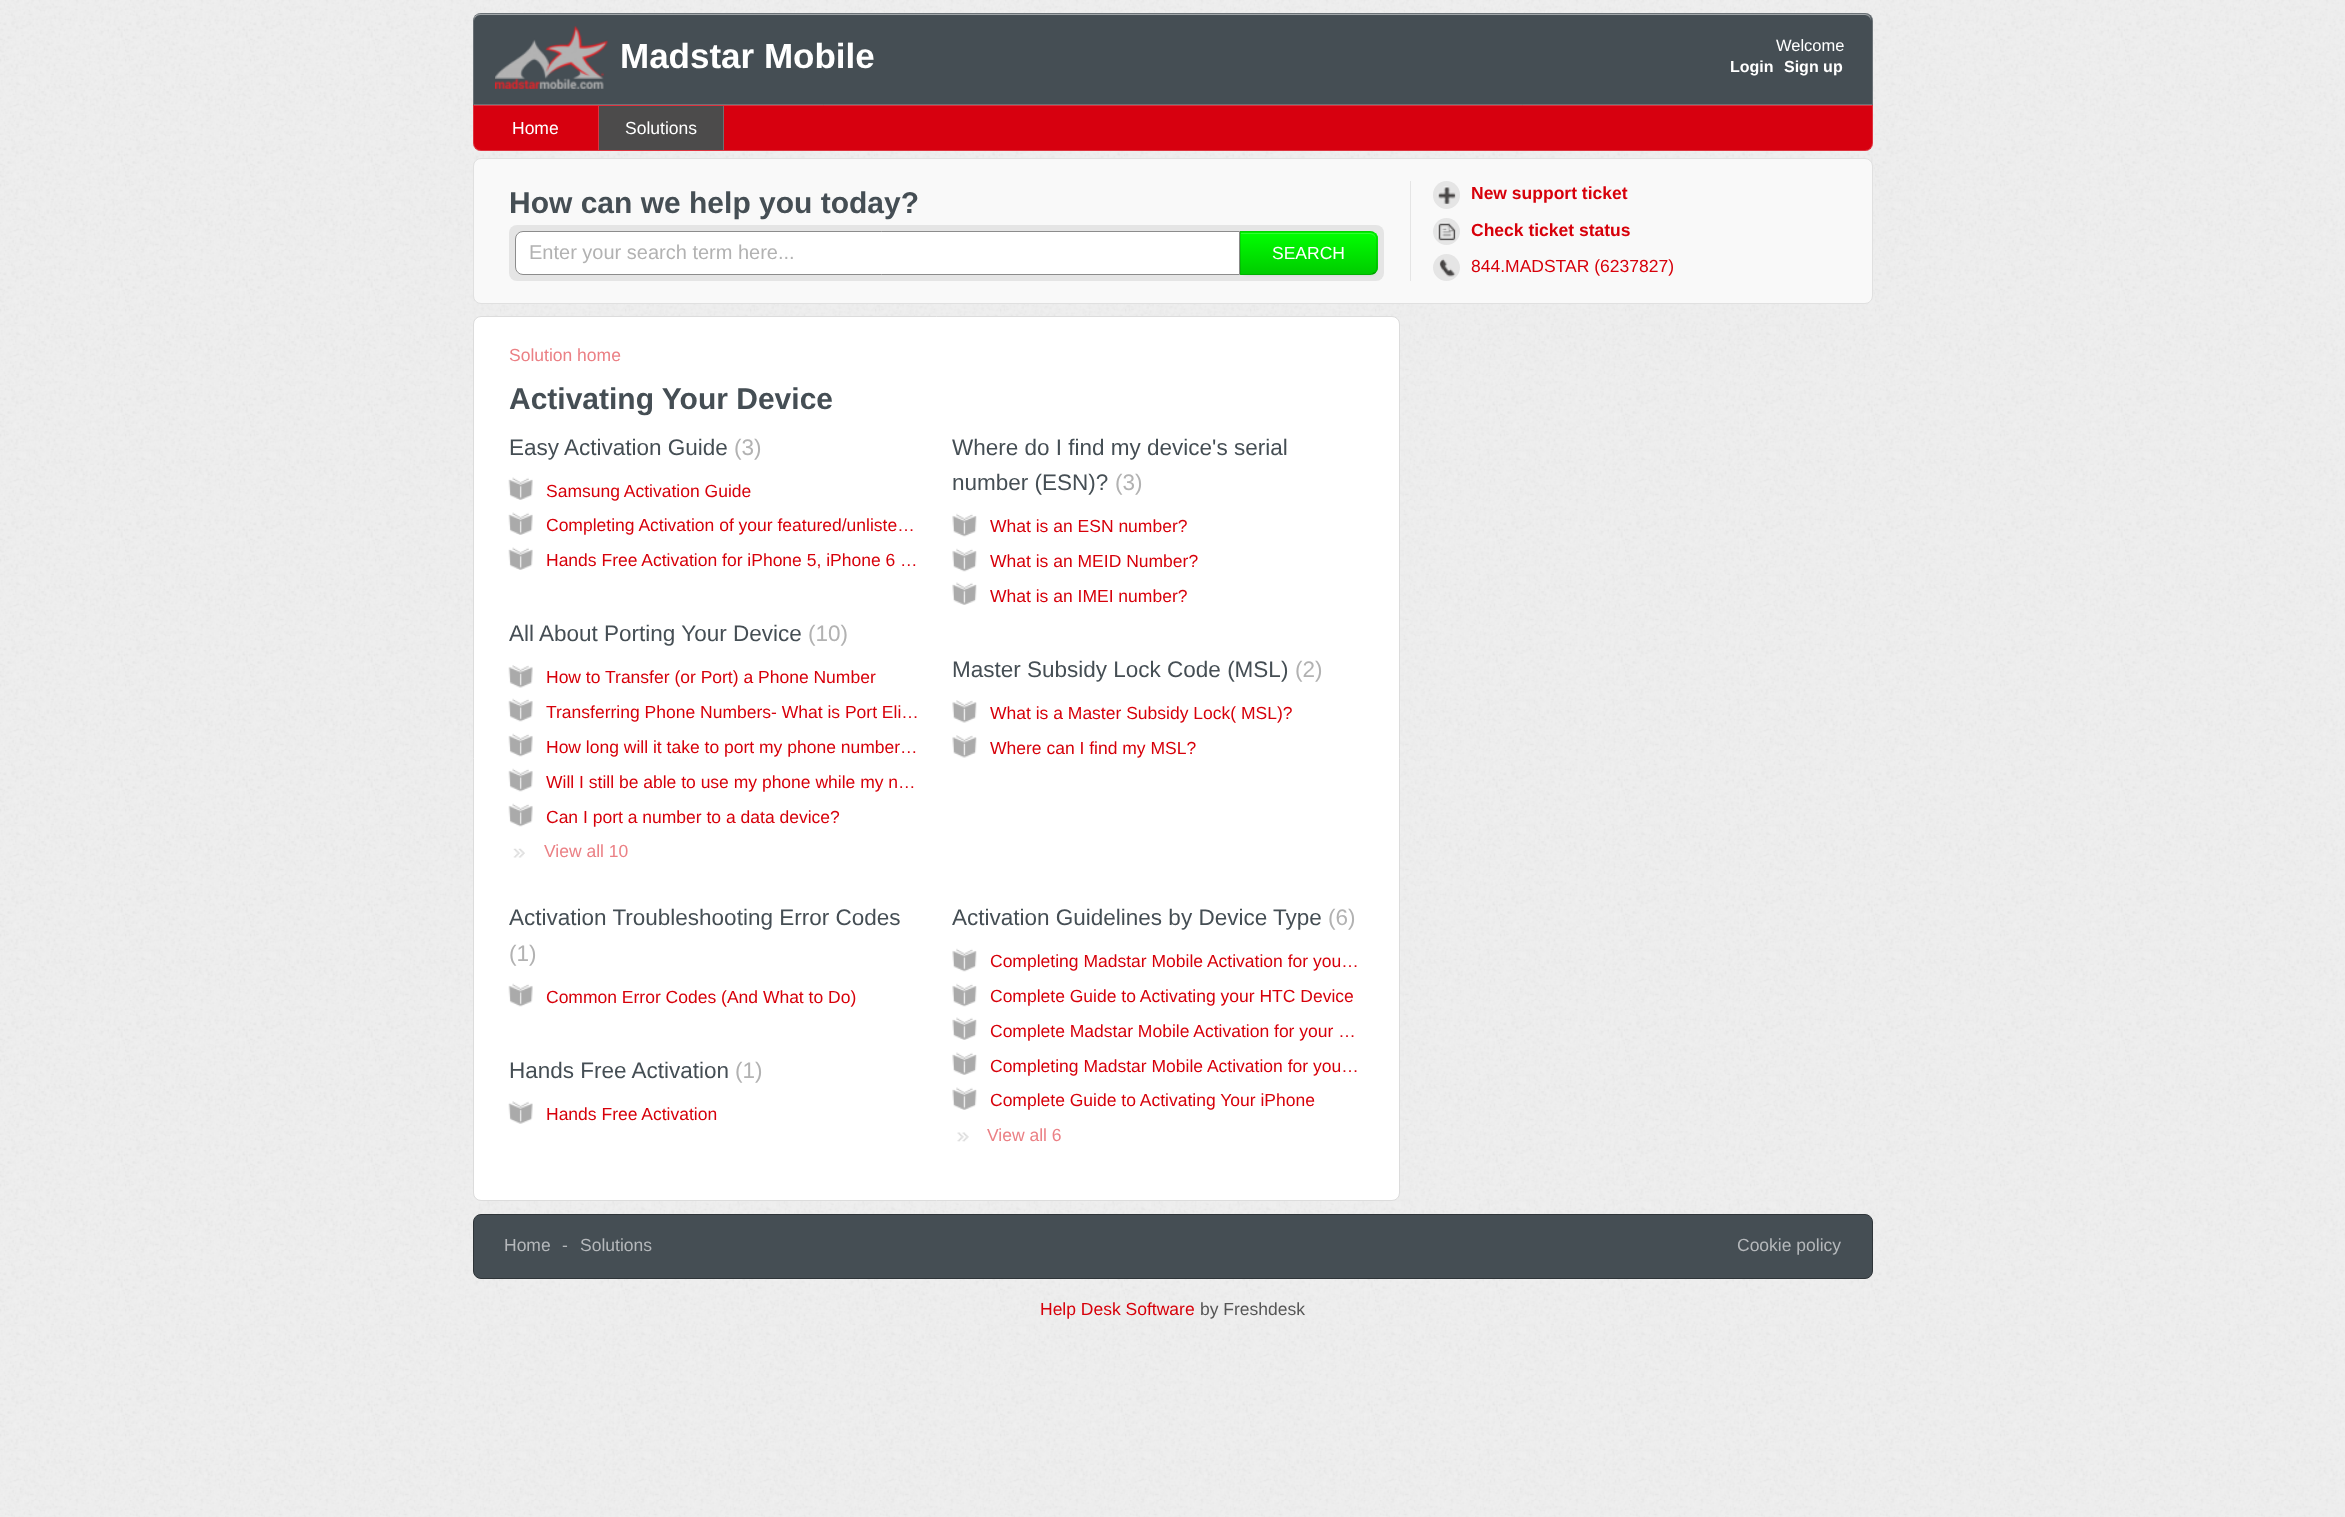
async function draw(canvas) {
  canvas.width = 2345
  canvas.height = 1517
  const ctx = canvas.getContext('2d')
  ctx.miterLimit = 4
  ctx.fontKerning = 'normal'
  async function loadImage(src) {
    const img = new Image()
    img.src = src
    await img.decode()
    return img
  }
  let gradient

  ctx.fillStyle = '#efefef'
  ctx.fillRect(0, 0, 2345, 1517)
  ctx.drawImage(await loadImage('image0.png'), 0, 0, 2345, 1517)
  ctx.fillStyle = '#454e54'
  ctx.beginPath()
  ctx.roundRect(473, 13, 1400, 92, [8, 8, 0, 0])
  ctx.fill()
  ctx.fillStyle = '#a2a7aa'
  ctx.beginPath()
  ctx.moveTo(480, 15)
  ctx.lineTo(1865, 15)
  ctx.bezierCurveTo(1868, 15, 1871, 18, 1871, 21)
  ctx.bezierCurveTo(1871, 17, 1869, 14, 1865, 14)
  ctx.lineTo(480, 14)
  ctx.bezierCurveTo(476, 14, 474, 17, 474, 21)
  ctx.bezierCurveTo(474, 18, 477, 15, 480, 15)
  ctx.closePath()
  ctx.fill()
  ctx.beginPath()
  ctx.roundRect(473.5, 13.5, 1399, 91, [7.5, 7.5, 0, 0])
  ctx.strokeStyle = '#ffffff33'
  ctx.stroke()
  ctx.drawImage(await loadImage('image1.png'), 495, 26, 113, 63)
  ctx.font = 'bold 35px Liberation Sans'
  ctx.fillStyle = '#fff'
  ctx.fillText('Madstar Mobile', 620, 68)
  ctx.font = '16.5px Liberation Sans'
  ctx.fillText('Welcome', 1776, 51)
  ctx.font = 'bold 16px Liberation Sans'
  ctx.fillText('Login', 1730, 72)
  ctx.fillText('Sign up', 1784, 72)
  ctx.fillStyle = '#d7000f'
  ctx.beginPath()
  ctx.roundRect(473, 105, 1400, 46, [0, 0, 8, 8])
  ctx.fill()
  ctx.beginPath()
  ctx.roundRect(473.5, 105.5, 1399, 45, [0, 0, 7.5, 7.5])
  ctx.stroke()
  ctx.fillStyle = '#df333f'
  ctx.fillRect(598, 106, 1, 44)
  ctx.font = '17.5px Liberation Sans'
  ctx.fillStyle = '#fff'
  ctx.fillText('Home', 512, 134)
  ctx.fillStyle = '#4c4b4b'
  ctx.fillRect(599, 106, 124, 44)
  ctx.fillStyle = '#706f6f'
  ctx.fillRect(723, 106, 1, 44)
  ctx.fillStyle = '#fff'
  ctx.fillText('Solutions', 625, 134)
  ctx.fillStyle = '#f9f9f9'
  ctx.beginPath()
  ctx.roundRect(473.5, 158.5, 1399, 145, 7.5)
  ctx.fill()
  ctx.strokeStyle = '#e0e0e0'
  ctx.stroke()
  ctx.fillStyle = '#e5e5e5'
  ctx.fillRect(1410, 181, 1, 100)
  ctx.font = 'bold 30px Liberation Sans'
  ctx.fillStyle = '#454e54'
  ctx.fillText('How can we help you today?', 509, 213)
  ctx.fillStyle = '#e5e5e5'
  ctx.beginPath()
  ctx.roundRect(509, 225, 875, 56, 8)
  ctx.fill()
  ctx.fillStyle = '#fff'
  ctx.beginPath()
  ctx.roundRect(515.5, 231.5, 724, 43, [7.5, 0, 0, 7.5])
  ctx.fill()
  ctx.strokeStyle = '#8c8c8c'
  ctx.stroke()
  ctx.font = '20px Liberation Sans'
  ctx.fillStyle = '#b2b2b2'
  ctx.fillText('Enter your search term here...', 529, 259)
  ctx.fillStyle = '#0000000d'
  ctx.filter = 'blur(1px)'
  ctx.beginPath()
  ctx.roundRect(1240, 233, 138, 43, 8)
  ctx.fill()
  ctx.filter = 'none'
  ctx.fillStyle = '#00eb00'
  ctx.beginPath()
  ctx.roundRect(1240, 231, 138, 44, [0, 8, 8, 0])
  ctx.fill()
  ctx.save()
  ctx.beginPath()
  ctx.roundRect(1240, 231, 138, 44, [0, 8, 8, 0])
  ctx.clip()
  gradient = ctx.createLinearGradient(1309, 233, 1309, 274)
  gradient.addColorStop(0, '#0f0')
  gradient.addColorStop(1, '#0c0')
  ctx.fillStyle = gradient
  ctx.fillRect(1240, 233, 138, 41)
  ctx.restore()
  ctx.fillStyle = '#33fe33'
  ctx.beginPath()
  ctx.moveTo(1241, 234)
  ctx.lineTo(1370, 234)
  ctx.bezierCurveTo(1373, 234, 1376, 237, 1376, 240)
  ctx.lineTo(1376, 239)
  ctx.bezierCurveTo(1376, 236, 1373, 233, 1370, 233)
  ctx.lineTo(1241, 233)
  ctx.closePath()
  ctx.fill()
  ctx.fillStyle = '#0000001a'
  ctx.beginPath()
  ctx.moveTo(1241, 232)
  ctx.lineTo(1240, 231)
  ctx.lineTo(1372, 231)
  ctx.lineTo(1375, 233)
  ctx.lineTo(1374, 234)
  ctx.bezierCurveTo(1373, 233, 1372, 232, 1370, 232)
  ctx.closePath()
  ctx.fill()
  ctx.beginPath()
  ctx.moveTo(1377.5, 270.5)
  ctx.lineTo(1375.5, 273)
  ctx.lineTo(1374.5, 272)
  ctx.bezierCurveTo(1375.5, 271, 1376, 269.5, 1376, 268)
  ctx.lineTo(1376, 239)
  ctx.bezierCurveTo(1376, 237, 1375.5, 235.5, 1374.5, 234.5)
  ctx.lineTo(1375.5, 233.5)
  ctx.bezierCurveTo(1376.5, 234.5, 1377, 235.5, 1377.5, 236.5)
  ctx.closePath()
  ctx.fill()
  ctx.fillStyle = '#00000040'
  ctx.beginPath()
  ctx.moveTo(1370, 275)
  ctx.bezierCurveTo(1372, 275, 1374, 274, 1376, 273)
  ctx.lineTo(1374, 272)
  ctx.bezierCurveTo(1373, 273, 1372, 274, 1370, 274)
  ctx.lineTo(1241, 274)
  ctx.lineTo(1240, 275)
  ctx.closePath()
  ctx.fill()
  ctx.fillStyle = '#0000001a'
  ctx.beginPath()
  ctx.moveTo(1240, 275)
  ctx.lineTo(1241, 274)
  ctx.lineTo(1241, 232)
  ctx.lineTo(1240, 231)
  ctx.closePath()
  ctx.fill()
  ctx.font = '17.5px Liberation Sans'
  ctx.fillStyle = '#fff'
  ctx.fillText('SEARCH', 1272, 259)
  ctx.fillStyle = '#e5e5e5'
  ctx.beginPath()
  ctx.roundRect(1433, 181, 27, 28, 13.5)
  ctx.fill()
  ctx.drawImage(await loadImage('image2.png'), 1437, 186, 19, 18)
  ctx.font = 'bold 17.5px Liberation Sans'
  ctx.fillStyle = '#d7000a'
  ctx.fillText('New support ticket', 1471, 199)
  ctx.fillStyle = '#e5e5e5'
  ctx.beginPath()
  ctx.arc(1446.5, 231.5, 13.5, 0, 2 * Math.PI)
  ctx.fill()
  ctx.drawImage(await loadImage('image3.png'), 1437, 222, 19, 19)
  ctx.fillStyle = '#d7000a'
  ctx.fillText('Check ticket status', 1471, 236)
  ctx.fillStyle = '#e5e5e5'
  ctx.beginPath()
  ctx.arc(1446.5, 267.5, 13.5, 0, 2 * Math.PI)
  ctx.fill()
  ctx.drawImage(await loadImage('image4.png'), 1439, 258, 17, 19)
  ctx.font = '17.5px Liberation Sans'
  ctx.fillStyle = '#d7000a'
  ctx.fillText('844.MADSTAR (6237827)', 1471, 272)
  ctx.fillStyle = '#fff'
  ctx.beginPath()
  ctx.roundRect(473.5, 316.5, 926, 884, 7.5)
  ctx.fill()
  ctx.strokeStyle = '#dcdcdc'
  ctx.stroke()
  ctx.fillStyle = '#eb8085'
  ctx.fillText('Solution home', 509, 361)
  ctx.font = 'bold 30px Liberation Sans'
  ctx.fillStyle = '#454e54'
  ctx.fillText('Activating Your Device', 509, 409)
  ctx.font = '22.5px Liberation Sans'
  ctx.fillText('Easy Activation Guide', 509, 455)
  ctx.fillStyle = '#b2b2b2'
  ctx.fillText('(3)', 734, 455)
  ctx.drawImage(await loadImage('image5.png'), 508, 477, 25, 23)
  ctx.font = '17.5px Liberation Sans'
  ctx.fillStyle = '#d7000a'
  ctx.fillText('Samsung Activation Guide', 546, 497)
  ctx.drawImage(await loadImage('image6.png'), 508, 512, 25, 23)
  ctx.fillText('Completing Activation of your featured/unliste…', 546, 531)
  ctx.drawImage(await loadImage('image5.png'), 508, 547, 25, 23)
  ctx.fillText('Hands Free Activation for iPhone 5, iPhone 6 …', 546, 566)
  ctx.font = '22.5px Liberation Sans'
  ctx.fillStyle = '#454e54'
  ctx.fillText('Where do I find my device\'s serial', 952, 455)
  ctx.fillText('number (ESN)?', 952, 490)
  ctx.fillStyle = '#b2b2b2'
  ctx.fillText('(3)', 1115, 490)
  ctx.drawImage(await loadImage('image7.png'), 952, 513, 25, 24)
  ctx.font = '17.5px Liberation Sans'
  ctx.fillStyle = '#d7000a'
  ctx.fillText('What is an ESN number?', 990, 532)
  ctx.drawImage(await loadImage('image7.png'), 952, 548, 25, 24)
  ctx.fillText('What is an MEID Number?', 990, 567)
  ctx.drawImage(await loadImage('image8.png'), 952, 582, 25, 23)
  ctx.fillText('What is an IMEI number?', 990, 602)
  ctx.font = '22.5px Liberation Sans'
  ctx.fillStyle = '#454e54'
  ctx.fillText('All About Porting Your Device', 509, 641)
  ctx.fillStyle = '#b2b2b2'
  ctx.fillText('(10)', 808, 641)
  ctx.drawImage(await loadImage('image9.png'), 508, 665, 25, 23)
  ctx.font = '17.5px Liberation Sans'
  ctx.fillStyle = '#d7000a'
  ctx.fillText('How to Transfer (or Port) a Phone Number', 546, 683)
  ctx.drawImage(await loadImage('image10.png'), 508, 698, 25, 24)
  ctx.fillText('Transferring Phone Numbers- What is Port Eli…', 546, 718)
  ctx.drawImage(await loadImage('image10.png'), 508, 733, 25, 24)
  ctx.fillText('How long will it take to port my phone number…', 546, 753)
  ctx.drawImage(await loadImage('image10.png'), 508, 768, 25, 24)
  ctx.fillText('Will I still be able to use my phone while my n…', 546, 788)
  ctx.drawImage(await loadImage('image10.png'), 508, 803, 25, 24)
  ctx.fillText('Can I port a number to a data device?', 546, 823)
  ctx.drawImage(await loadImage('image11.png'), 513, 848, 12, 10)
  ctx.fillStyle = '#eb8085'
  ctx.fillText('View all 10', 544, 857)
  ctx.font = '22.5px Liberation Sans'
  ctx.fillStyle = '#454e54'
  ctx.fillText('Master Subsidy Lock Code (MSL)', 952, 677)
  ctx.fillStyle = '#b2b2b2'
  ctx.fillText('(2)', 1295, 677)
  ctx.drawImage(await loadImage('image12.png'), 952, 700, 25, 23)
  ctx.font = '17.5px Liberation Sans'
  ctx.fillStyle = '#d7000a'
  ctx.fillText('What is a Master Subsidy Lock( MSL)?', 990, 719)
  ctx.drawImage(await loadImage('image12.png'), 952, 735, 25, 23)
  ctx.fillText('Where can I find my MSL?', 990, 754)
  ctx.font = '22.5px Liberation Sans'
  ctx.fillStyle = '#454e54'
  ctx.fillText('Activation Troubleshooting Error Codes', 509, 925)
  ctx.fillStyle = '#b2b2b2'
  ctx.fillText('(1)', 509, 961)
  ctx.drawImage(await loadImage('image10.png'), 508, 983, 25, 24)
  ctx.font = '17.5px Liberation Sans'
  ctx.fillStyle = '#d7000a'
  ctx.fillText('Common Error Codes (And What to Do)', 546, 1003)
  ctx.font = '22.5px Liberation Sans'
  ctx.fillStyle = '#454e54'
  ctx.fillText('Activation Guidelines by Device Type', 952, 925)
  ctx.fillStyle = '#b2b2b2'
  ctx.fillText('(6)', 1328, 925)
  ctx.drawImage(await loadImage('image7.png'), 952, 948, 25, 24)
  ctx.font = '17.5px Liberation Sans'
  ctx.fillStyle = '#d7000a'
  ctx.fillText('Completing Madstar Mobile Activation for you…', 990, 967)
  ctx.drawImage(await loadImage('image7.png'), 952, 983, 25, 24)
  ctx.fillText('Complete Guide to Activating your HTC Device', 990, 1002)
  ctx.drawImage(await loadImage('image13.png'), 952, 1017, 25, 23)
  ctx.fillText('Complete Madstar Mobile Activation for your …', 990, 1037)
  ctx.drawImage(await loadImage('image13.png'), 952, 1052, 25, 23)
  ctx.fillText('Completing Madstar Mobile Activation for you…', 990, 1072)
  ctx.drawImage(await loadImage('image13.png'), 952, 1087, 25, 23)
  ctx.fillText('Complete Guide to Activating Your iPhone', 990, 1106)
  ctx.drawImage(await loadImage('image14.png'), 957, 1132, 12, 10)
  ctx.fillStyle = '#eb8085'
  ctx.fillText('View all 6', 987, 1141)
  ctx.font = '22.5px Liberation Sans'
  ctx.fillStyle = '#454e54'
  ctx.fillText('Hands Free Activation', 509, 1078)
  ctx.fillStyle = '#b2b2b2'
  ctx.fillText('(1)', 735, 1078)
  ctx.drawImage(await loadImage('image15.png'), 508, 1101, 25, 23)
  ctx.font = '17.5px Liberation Sans'
  ctx.fillStyle = '#d7000a'
  ctx.fillText('Hands Free Activation', 546, 1120)
  ctx.fillStyle = '#454e54'
  ctx.beginPath()
  ctx.roundRect(473.5, 1214.5, 1399, 64, 7.5)
  ctx.fill()
  ctx.strokeStyle = '#2e3438'
  ctx.stroke()
  ctx.fillStyle = '#b5b8bb'
  ctx.fillText('Home', 504, 1251)
  ctx.fillText('-', 562, 1251)
  ctx.fillText('Solutions', 580, 1251)
  ctx.fillText('Cookie policy', 1737, 1251)
  ctx.fillStyle = '#d7000a'
  ctx.fillText('Help Desk Software', 1040, 1315)
  ctx.fillStyle = '#555'
  ctx.fillText('by Freshdesk', 1200, 1315)
}

draw(document.querySelector('canvas'))
